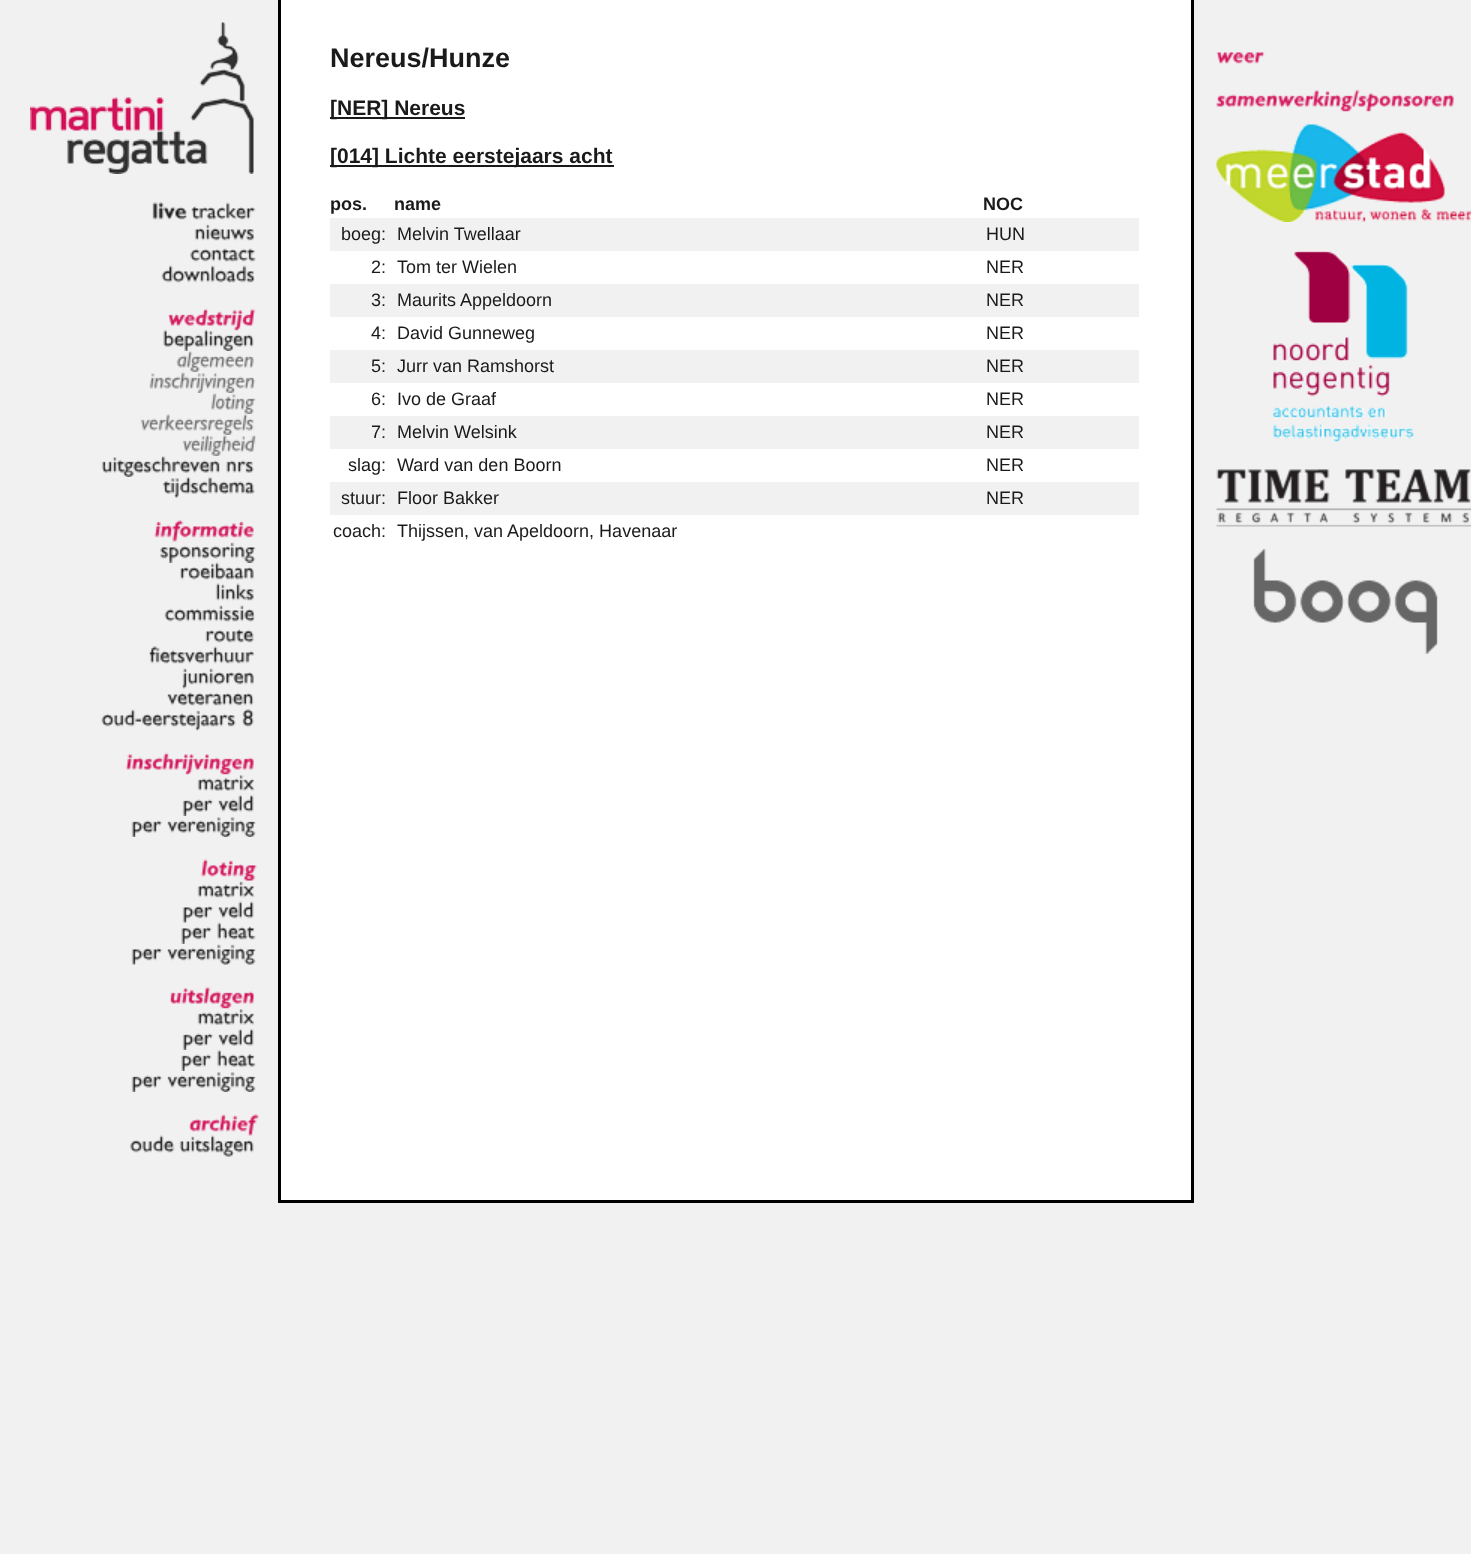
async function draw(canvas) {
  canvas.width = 1471
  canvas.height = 1554
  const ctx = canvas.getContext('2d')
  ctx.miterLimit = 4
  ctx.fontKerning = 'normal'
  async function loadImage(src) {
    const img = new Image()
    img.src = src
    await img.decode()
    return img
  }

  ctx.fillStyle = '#f1f1f1'
  ctx.fillRect(0, 0, 1471, 1554)
  ctx.fillStyle = '#000'
  ctx.fillRect(1191, 0, 3, 1203)
  ctx.fillRect(278, 1200, 916, 3)
  ctx.fillRect(278, 0, 3, 1203)
  ctx.drawImage(await loadImage('image0.png'), 30, 22, 224, 152)
  ctx.drawImage(await loadImage('image1.png'), 152, 202, 35, 18)
  ctx.drawImage(await loadImage('image2.png'), 191, 202, 65, 18)
  ctx.drawImage(await loadImage('image3.png'), 194, 224, 60, 17)
  ctx.drawImage(await loadImage('image4.png'), 190, 248, 66, 14)
  ctx.drawImage(await loadImage('image5.png'), 161, 265, 94, 18)
  ctx.drawImage(await loadImage('image6.png'), 168, 308, 88, 23)
  ctx.drawImage(await loadImage('image7.png'), 163, 329, 91, 22)
  ctx.drawImage(await loadImage('image8.png'), 176, 351, 78, 21)
  ctx.drawImage(await loadImage('image9.png'), 149, 372, 107, 21)
  ctx.drawImage(await loadImage('image10.png'), 211, 393, 45, 21)
  ctx.drawImage(await loadImage('image11.png'), 140, 413, 114, 22)
  ctx.drawImage(await loadImage('image12.png'), 182, 435, 74, 21)
  ctx.drawImage(await loadImage('image13.png'), 101, 456, 119, 21)
  ctx.drawImage(await loadImage('image14.png'), 226, 460, 28, 13)
  ctx.drawImage(await loadImage('image15.png'), 162, 476, 94, 22)
  ctx.drawImage(await loadImage('image16.png'), 154, 520, 100, 22)
  ctx.drawImage(await loadImage('image17.png'), 160, 542, 96, 21)
  ctx.drawImage(await loadImage('image18.png'), 180, 562, 74, 18)
  ctx.drawImage(await loadImage('image19.png'), 215, 583, 39, 18)
  ctx.drawImage(await loadImage('image20.png'), 164, 605, 91, 17)
  ctx.drawImage(await loadImage('image21.png'), 205, 629, 49, 14)
  ctx.drawImage(await loadImage('image22.png'), 149, 646, 105, 18)
  ctx.drawImage(await loadImage('image23.png'), 182, 668, 72, 21)
  ctx.drawImage(await loadImage('image24.png'), 167, 692, 87, 14)
  ctx.drawImage(await loadImage('image25.png'), 101, 709, 135, 22)
  ctx.drawImage(await loadImage('image26.png'), 242, 709, 12, 18)
  ctx.drawImage(await loadImage('image27.png'), 125, 752, 129, 23)
  ctx.drawImage(await loadImage('image28.png'), 197, 775, 58, 16)
  ctx.drawImage(await loadImage('image29.png'), 182, 799, 32, 17)
  ctx.drawImage(await loadImage('image30.png'), 218, 794, 36, 18)
  ctx.drawImage(await loadImage('image29.png'), 131, 820, 32, 17)
  ctx.drawImage(await loadImage('image31.png'), 167, 817, 89, 20)
  ctx.drawImage(await loadImage('image32.png'), 200, 859, 57, 22)
  ctx.drawImage(await loadImage('image33.png'), 197, 881, 58, 17)
  ctx.drawImage(await loadImage('image34.png'), 182, 906, 32, 17)
  ctx.drawImage(await loadImage('image35.png'), 218, 901, 36, 18)
  ctx.drawImage(await loadImage('image36.png'), 181, 926, 31, 18)
  ctx.drawImage(await loadImage('image37.png'), 217, 922, 39, 18)
  ctx.drawImage(await loadImage('image34.png'), 131, 948, 32, 17)
  ctx.drawImage(await loadImage('image38.png'), 167, 944, 89, 21)
  ctx.drawImage(await loadImage('image39.png'), 169, 986, 85, 23)
  ctx.drawImage(await loadImage('image28.png'), 197, 1009, 58, 16)
  ctx.drawImage(await loadImage('image29.png'), 182, 1033, 32, 17)
  ctx.drawImage(await loadImage('image30.png'), 218, 1028, 36, 18)
  ctx.drawImage(await loadImage('image40.png'), 181, 1054, 31, 17)
  ctx.drawImage(await loadImage('image41.png'), 217, 1049, 39, 18)
  ctx.drawImage(await loadImage('image29.png'), 131, 1075, 32, 17)
  ctx.drawImage(await loadImage('image31.png'), 167, 1072, 89, 20)
  ctx.drawImage(await loadImage('image42.png'), 189, 1114, 70, 22)
  ctx.drawImage(await loadImage('image43.png'), 130, 1135, 45, 18)
  ctx.drawImage(await loadImage('image44.png'), 179, 1135, 75, 22)
  ctx.fillStyle = '#fff'
  ctx.fillRect(281, 0, 910, 1200)
  ctx.font = 'bold 27px Liberation Sans'
  ctx.fillStyle = '#1a1a1a'
  ctx.fillText('Nereus/Hunze', 330, 67)
  ctx.fillRect(330, 117, 135, 2)
  ctx.font = 'bold 21px Liberation Sans'
  ctx.fillText('[NER] Nereus', 330, 115)
  ctx.fillRect(330, 165, 284, 2)
  ctx.fillText('[014] Lichte eerstejaars acht', 330, 163)
  ctx.font = 'bold 18px Liberation Sans'
  ctx.fillText('pos.', 330, 210)
  ctx.fillText('name', 394, 210)
  ctx.fillText('NOC', 983, 210)
  ctx.fillStyle = '#f1f1f1'
  ctx.fillRect(330, 218, 809, 33)
  ctx.font = '18px Liberation Sans'
  ctx.fillStyle = '#1a1a1a'
  ctx.fillText('boeg:', 341, 240)
  ctx.fillText('Melvin Twellaar', 397, 240)
  ctx.fillText('HUN', 986, 240)
  ctx.fillText('2:', 371, 273)
  ctx.fillText('Tom ter Wielen', 397, 273)
  ctx.fillText('NER', 986, 273)
  ctx.fillStyle = '#f1f1f1'
  ctx.fillRect(330, 284, 809, 33)
  ctx.fillStyle = '#1a1a1a'
  ctx.fillText('3:', 371, 306)
  ctx.fillText('Maurits Appeldoorn', 397, 306)
  ctx.fillText('NER', 986, 306)
  ctx.fillText('4:', 371, 339)
  ctx.fillText('David Gunneweg', 397, 339)
  ctx.fillText('NER', 986, 339)
  ctx.fillStyle = '#f1f1f1'
  ctx.fillRect(330, 350, 809, 33)
  ctx.fillStyle = '#1a1a1a'
  ctx.fillText('5:', 371, 372)
  ctx.fillText('Jurr van Ramshorst', 397, 372)
  ctx.fillText('NER', 986, 372)
  ctx.fillText('6:', 371, 405)
  ctx.fillText('Ivo de Graaf', 397, 405)
  ctx.fillText('NER', 986, 405)
  ctx.fillStyle = '#f1f1f1'
  ctx.fillRect(330, 416, 809, 33)
  ctx.fillStyle = '#1a1a1a'
  ctx.fillText('7:', 371, 438)
  ctx.fillText('Melvin Welsink', 397, 438)
  ctx.fillText('NER', 986, 438)
  ctx.fillText('slag:', 348, 471)
  ctx.fillText('Ward van den Boorn', 397, 471)
  ctx.fillText('NER', 986, 471)
  ctx.fillStyle = '#f1f1f1'
  ctx.fillRect(330, 482, 809, 33)
  ctx.fillStyle = '#1a1a1a'
  ctx.fillText('stuur:', 341, 504)
  ctx.fillText('Floor Bakker', 397, 504)
  ctx.fillText('NER', 986, 504)
  ctx.fillText('coach:', 333, 537)
  ctx.fillText('Thijssen, van Apeldoorn, Havenaar', 397, 537)
  ctx.drawImage(await loadImage('image45.png'), 1216, 52, 49, 12)
  ctx.drawImage(await loadImage('image46.png'), 1216, 89, 238, 23)
  ctx.drawImage(await loadImage('image47.png'), 1216, 124, 255, 98)
  ctx.drawImage(await loadImage('image48.png'), 1273, 250, 141, 192)
  ctx.drawImage(await loadImage('image49.png'), 1216, 469, 255, 58)
  ctx.drawImage(await loadImage('image50.png'), 1253, 549, 185, 105)
}

draw(document.querySelector('canvas'))
